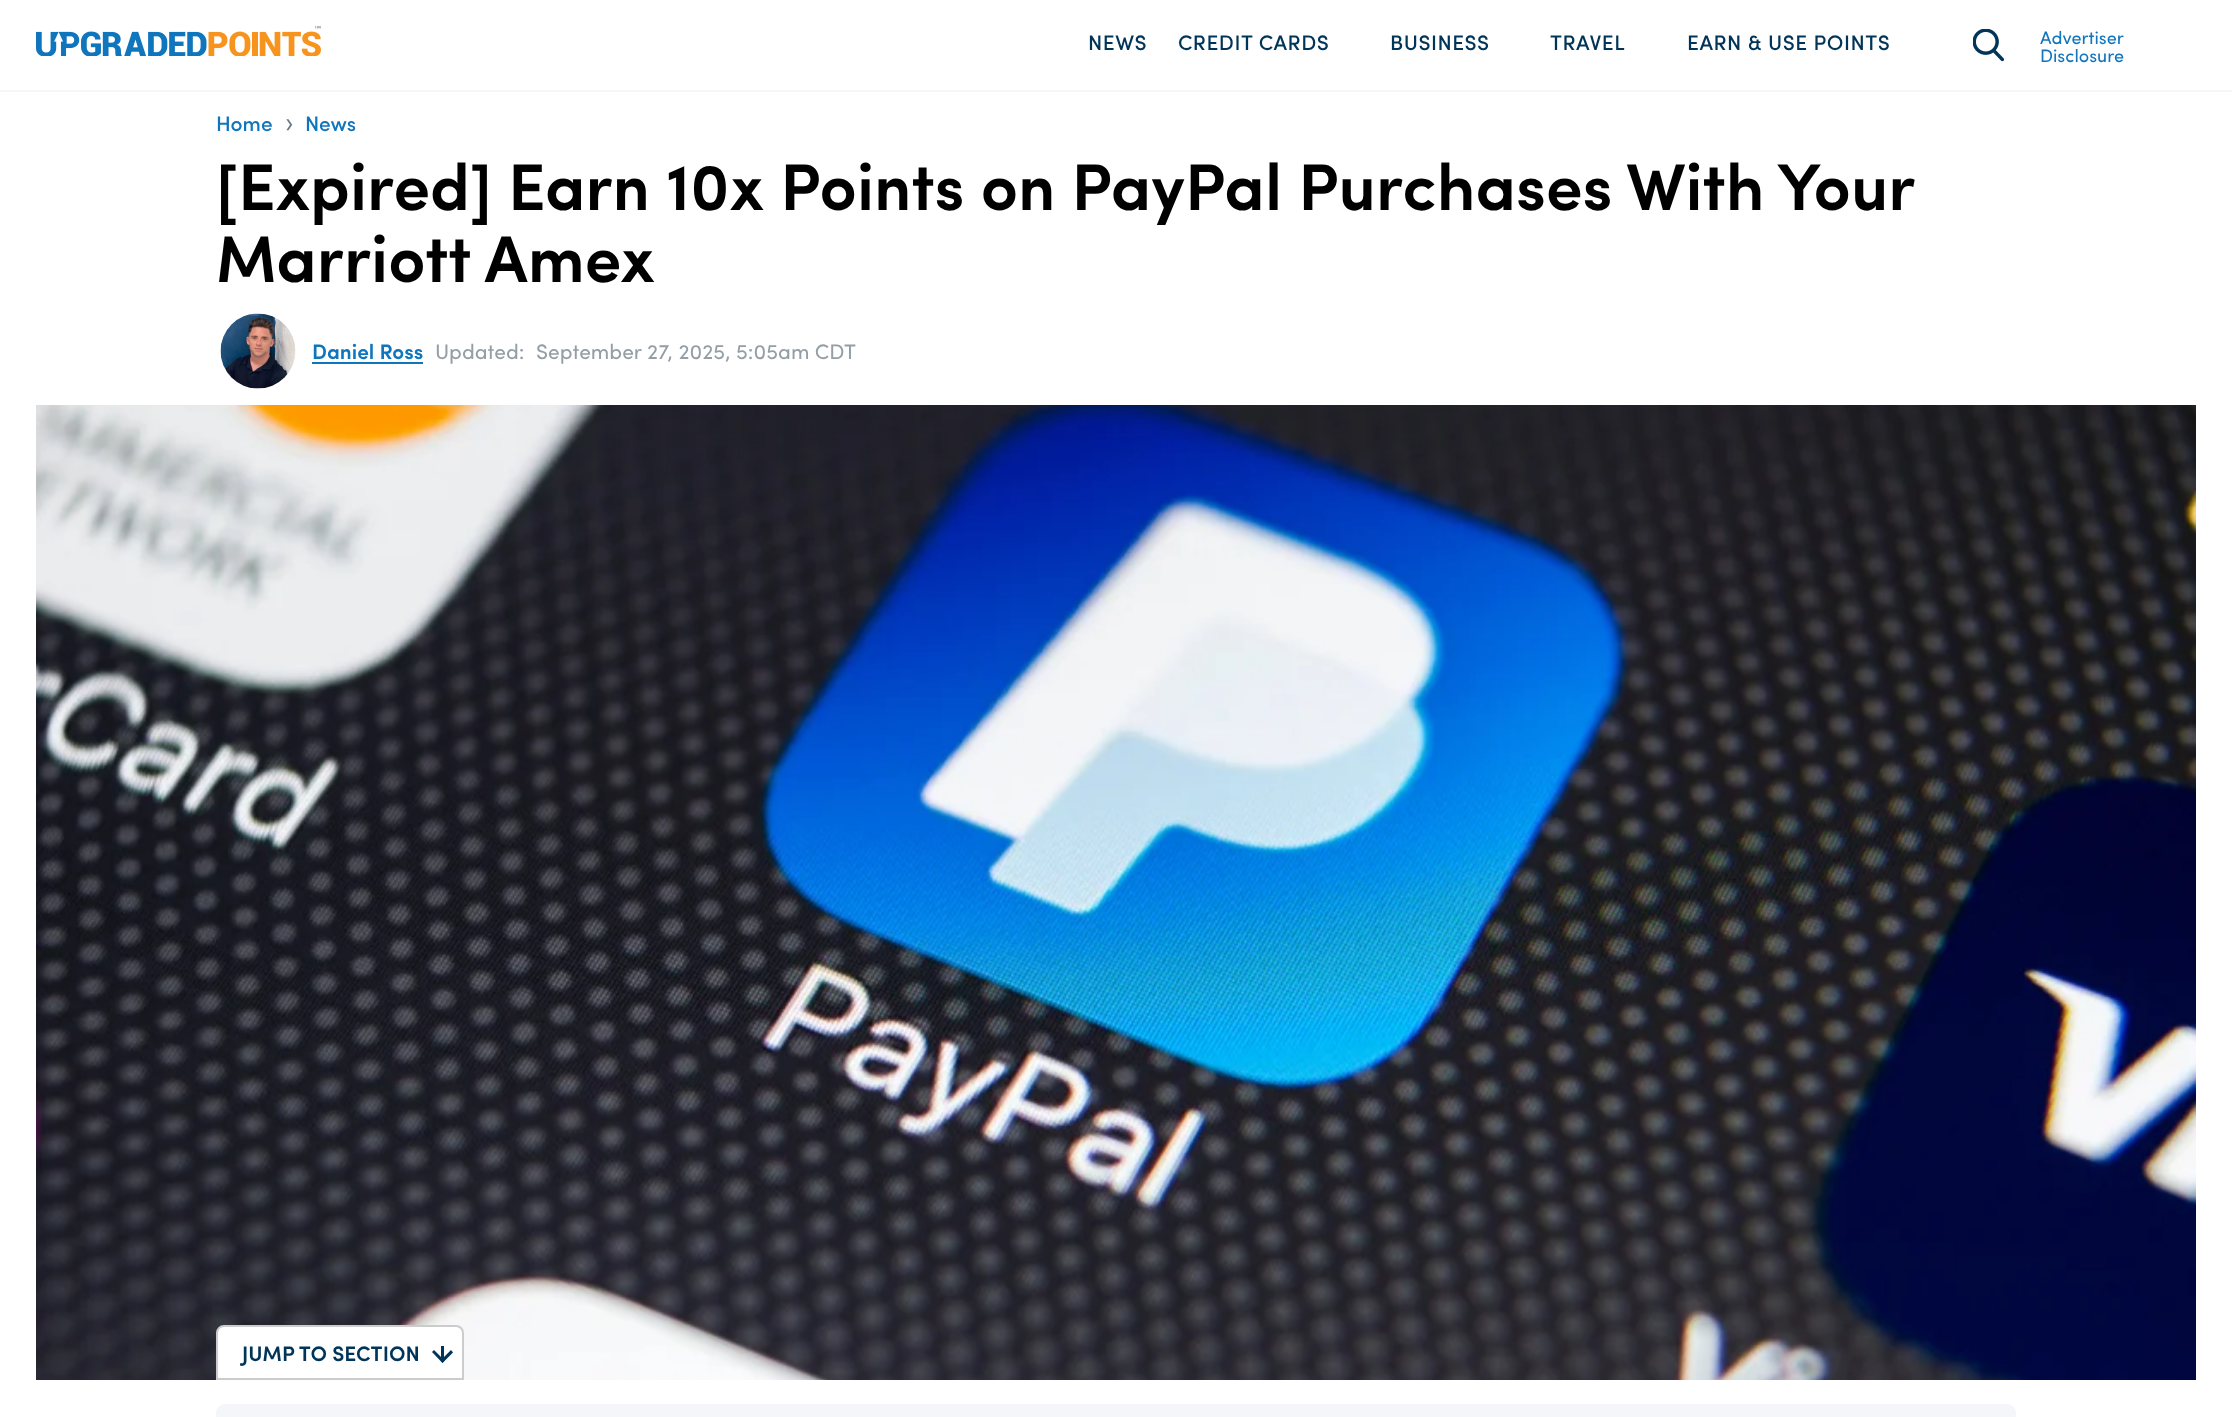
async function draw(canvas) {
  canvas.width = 2232
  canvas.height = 1417
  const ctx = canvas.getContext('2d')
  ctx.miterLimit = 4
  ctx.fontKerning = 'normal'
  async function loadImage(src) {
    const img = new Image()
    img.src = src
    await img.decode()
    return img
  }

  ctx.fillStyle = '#fff'
  ctx.fillRect(0, 0, 2232, 1417)
  ctx.drawImage(await loadImage('image0.png'), 36, 26, 285, 30)
  ctx.letterSpacing = '0.5px'
  ctx.font = '500 21px Sofia'
  ctx.fillStyle = '#003458'
  ctx.fillText('NEWS', 1088, 50)
  ctx.fillText('CREDIT CARDS', 1178, 50)
  ctx.fillText('BUSINESS', 1390, 50)
  ctx.fillText('TRAVEL', 1550, 50)
  ctx.fillText('EARN & USE POINTS', 1687, 50)
  ctx.drawImage(await loadImage('image1.png'), 1973, 29, 31, 33)
  ctx.letterSpacing = '0px'
  ctx.font = '18px Sofia'
  ctx.fillStyle = '#0f75bd'
  ctx.fillText('Advertiser', 2040, 44)
  ctx.fillText('Disclosure', 2040, 62)
  ctx.fillStyle = '#f4f6f9'
  ctx.fillRect(0, 90, 2232, 2)
  ctx.font = '500 21px Sofia'
  ctx.fillStyle = '#0f75bd'
  ctx.fillText('Home', 216, 131)
  ctx.font = '27px Sofia'
  ctx.fillStyle = '#6a7a84'
  ctx.fillText('›', 285, 131)
  ctx.font = '500 21px Sofia'
  ctx.fillStyle = '#0f75bd'
  ctx.fillText('News', 305, 131)
  ctx.wordSpacing = '-0.25px'
  ctx.font = '600 66px Sofia'
  ctx.fillStyle = '#000'
  ctx.fillText('[Expired] Earn 10x Points on PayPal Purchases With Your', 216, 210)
  ctx.wordSpacing = '0px'
  ctx.fillText('Marriott Amex', 216, 282)
  ctx.drawImage(await loadImage('image2.png'), 220, 313, 76, 76)
  ctx.font = '600 21px Sofia'
  ctx.fillStyle = '#0f75bd'
  ctx.fillText('Daniel Ross', 312, 359)
  ctx.fillRect(312, 362, 111, 2)
  ctx.font = '21px Sofia'
  ctx.fillStyle = '#939fa5'
  ctx.fillText('Updated:', 435, 359)
  ctx.fillText('September 27, 2025, 5:05am CDT', 536, 359)
  ctx.drawImage(await loadImage('image3.png'), 36, 405, 2160, 975)
  ctx.fillStyle = '#fff'
  ctx.beginPath()
  ctx.roundRect(217, 1326, 246, 53, [7, 7, 0, 0])
  ctx.fill()
  ctx.strokeStyle = '#ccc'
  ctx.lineWidth = 2
  ctx.stroke()
  ctx.font = '600 21px Sofia'
  ctx.fillStyle = '#003458'
  ctx.fillText('JUMP TO SECTION', 242, 1361)
  ctx.beginPath()
  ctx.moveTo(451, 1350)
  ctx.lineTo(453, 1352.5)
  ctx.lineTo(442.5, 1363)
  ctx.lineTo(440.5, 1360.5)
  ctx.closePath()
  ctx.fill()
  ctx.beginPath()
  ctx.moveTo(434, 1350)
  ctx.lineTo(444.5, 1360.5)
  ctx.lineTo(442.5, 1363)
  ctx.lineTo(432, 1352)
  ctx.closePath()
  ctx.fill()
  ctx.fillRect(441, 1346, 3, 15)
  ctx.fillStyle = '#f4f6f9'
  ctx.beginPath()
  ctx.roundRect(216, 1404, 1800, 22, 9)
  ctx.fill()
}

draw(document.querySelector('canvas'))
